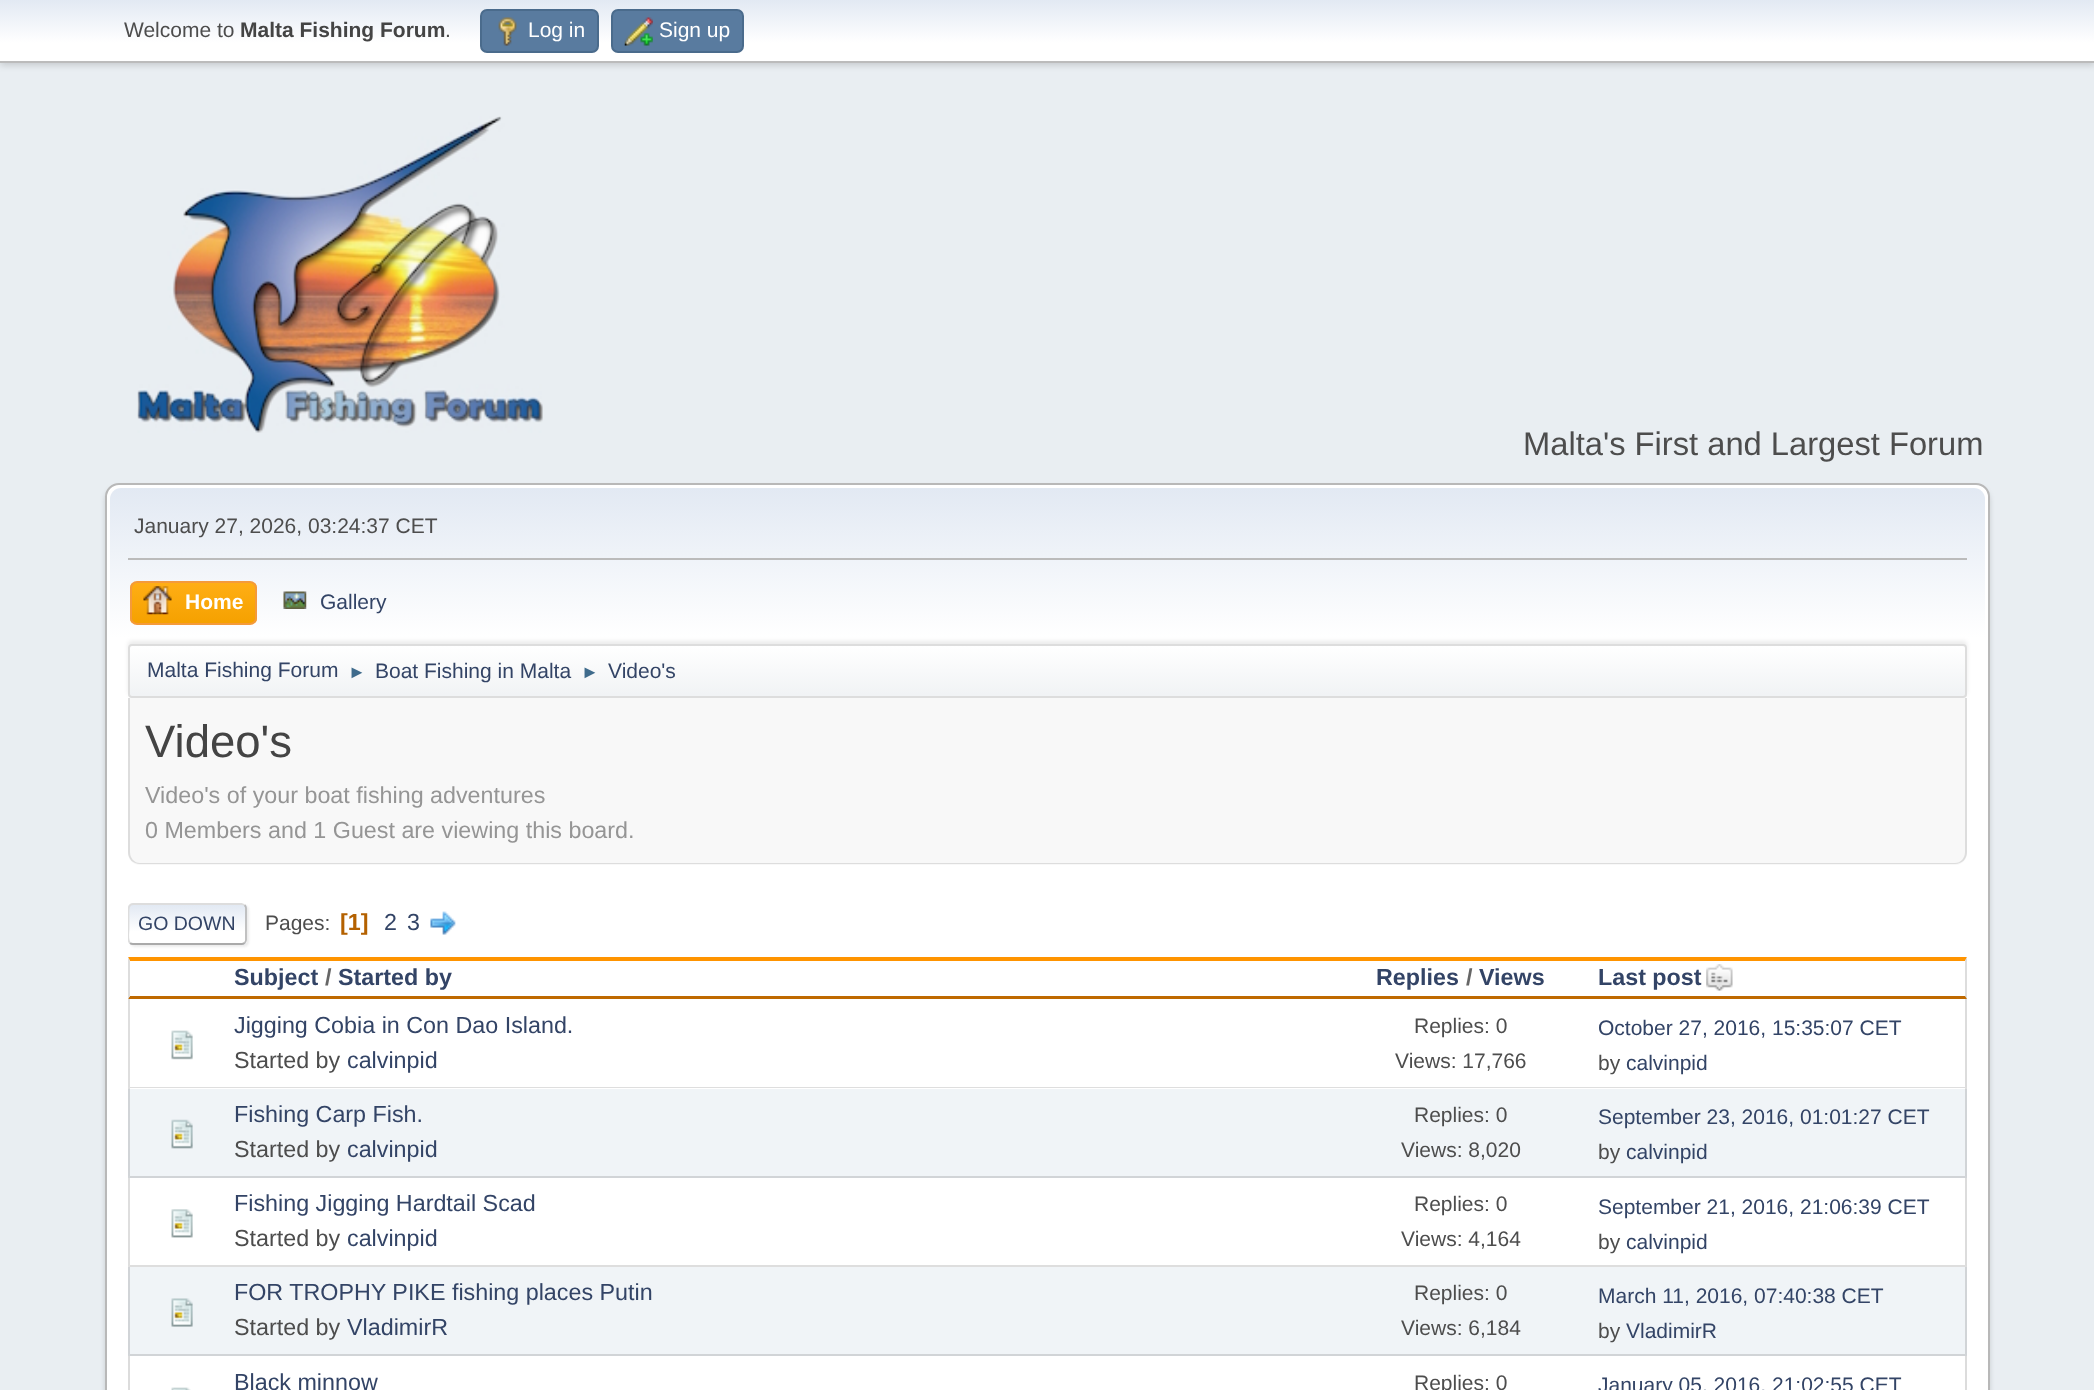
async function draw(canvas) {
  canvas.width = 2094
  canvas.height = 1390
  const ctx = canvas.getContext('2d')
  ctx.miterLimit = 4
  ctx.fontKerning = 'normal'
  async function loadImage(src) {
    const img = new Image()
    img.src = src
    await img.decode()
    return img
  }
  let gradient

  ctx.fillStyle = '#e9eef2'
  ctx.fillRect(0, 0, 2094, 1390)
  ctx.fillStyle = '#00000029'
  ctx.filter = 'blur(3.5px)'
  ctx.beginPath()
  ctx.rect(0, 2, 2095, 63)
  ctx.fill()
  ctx.filter = 'none'
  gradient = ctx.createLinearGradient(1047, 0, 1047, 61)
  gradient.addColorStop(0, '#e2e9f3')
  gradient.addColorStop(0.7, '#fff')
  ctx.fillStyle = gradient
  ctx.fillRect(0, 0, 2094, 61)
  ctx.fillStyle = '#bbb'
  ctx.fillRect(0, 61, 2094, 2)
  ctx.font = '21px Liberation Sans'
  ctx.fillStyle = '#4d4d4d'
  ctx.fillText('Welcome to', 124, 37)
  ctx.font = 'bold 21px Liberation Sans'
  ctx.fillStyle = '#444'
  ctx.fillText('Malta Fishing Forum', 240, 37)
  ctx.font = '21px Liberation Sans'
  ctx.fillStyle = '#4d4d4d'
  ctx.fillText('.', 445, 37)
  ctx.fillStyle = '#597b9f'
  ctx.beginPath()
  ctx.roundRect(481, 10, 117, 42, 6)
  ctx.fill()
  ctx.strokeStyle = '#4a6b8c'
  ctx.lineWidth = 2
  ctx.stroke()
  ctx.drawImage(await loadImage('image0.png'), 498, 17, 19, 29)
  ctx.fillStyle = '#fff'
  ctx.fillText('Log in', 528, 37)
  ctx.fillStyle = '#597b9f'
  ctx.beginPath()
  ctx.roundRect(612, 10, 131, 42, 6)
  ctx.fill()
  ctx.stroke()
  ctx.drawImage(await loadImage('image1.png'), 624, 17, 29, 29)
  ctx.fillStyle = '#fff'
  ctx.fillText('Sign up', 659, 37)
  ctx.drawImage(await loadImage('image2.png'), 137, 116, 406, 317)
  ctx.font = '32.7px Liberation Sans'
  ctx.fillStyle = '#4d4d4d'
  ctx.fillText('Malta\'s First and Largest Forum', 1523, 455)
  ctx.fillStyle = '#00000024'
  ctx.filter = 'blur(2.5px)'
  ctx.beginPath()
  ctx.roundRect(105, 487, 1885, 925, 14)
  ctx.fill()
  ctx.filter = 'none'
  ctx.fillStyle = '#fff'
  ctx.beginPath()
  ctx.roundRect(106, 484, 1883, 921, 13)
  ctx.fill()
  ctx.strokeStyle = '#b8b8b8'
  ctx.stroke()
  gradient = ctx.createLinearGradient(1047, 488, 1047, 702)
  gradient.addColorStop(0, '#e2e9f3')
  gradient.addColorStop(0.7, '#fff')
  ctx.fillStyle = gradient
  ctx.beginPath()
  ctx.roundRect(110, 488, 1875, 214, [11, 11, 0, 0])
  ctx.fill()
  ctx.fillStyle = '#bbb'
  ctx.fillRect(128, 558, 1839, 2)
  ctx.font = '21px Liberation Sans'
  ctx.fillStyle = '#4d4d4d'
  ctx.fillText('January 27, 2026, 03:24:37 CET', 134, 533)
  ctx.save()
  ctx.beginPath()
  ctx.roundRect(130, 581, 127, 44, 7)
  ctx.clip()
  gradient = ctx.createLinearGradient(193, 583, 193, 623)
  gradient.addColorStop(0, '#ffae14')
  gradient.addColorStop(1, '#f5a100')
  ctx.fillStyle = gradient
  ctx.fillRect(130, 583, 127, 40)
  ctx.restore()
  ctx.beginPath()
  ctx.roundRect(131, 582, 125, 42, 6)
  ctx.strokeStyle = '#f49a3a'
  ctx.stroke()
  ctx.drawImage(await loadImage('image3.png'), 143, 586, 29, 29)
  ctx.font = 'bold 21px Liberation Sans'
  ctx.fillStyle = '#fff'
  ctx.fillText('Home', 185, 609)
  ctx.drawImage(await loadImage('image4.png'), 283, 591, 24, 18)
  ctx.font = '21px Liberation Sans'
  ctx.fillStyle = '#346'
  ctx.fillText('Gallery', 320, 609)
  ctx.fillStyle = '#00000014'
  ctx.filter = 'blur(2px)'
  ctx.beginPath()
  ctx.roundRect(128, 641, 1839, 54, 4)
  ctx.fill()
  ctx.filter = 'none'
  ctx.save()
  ctx.beginPath()
  ctx.roundRect(128, 644, 1839, 54, 4)
  ctx.clip()
  gradient = ctx.createLinearGradient(1047, 646, 1047, 697)
  gradient.addColorStop(0, '#fff')
  gradient.addColorStop(0.95, '#f1f3f5')
  ctx.fillStyle = gradient
  ctx.fillRect(128, 646, 1839, 51)
  ctx.restore()
  ctx.beginPath()
  ctx.roundRect(129, 645, 1837, 52, 3)
  ctx.strokeStyle = '#ddd'
  ctx.stroke()
  ctx.fillStyle = '#346'
  ctx.fillText('Malta Fishing Forum', 147, 677)
  ctx.font = '18px Liberation Sans'
  ctx.fillStyle = '#3f6b8c'
  ctx.fillText('►', 348, 678)
  ctx.font = '21px Liberation Sans'
  ctx.fillStyle = '#346'
  ctx.fillText('Boat Fishing in Malta', 375, 678)
  ctx.font = '18px Liberation Sans'
  ctx.fillStyle = '#3f6b8c'
  ctx.fillText('►', 581, 678)
  ctx.font = '21px Liberation Sans'
  ctx.fillStyle = '#346'
  ctx.fillText('Video\'s', 608, 678)
  ctx.fillStyle = '#f8f8f8'
  ctx.beginPath()
  ctx.roundRect(128, 698, 1839, 167, [0, 0, 12, 12])
  ctx.fill()
  ctx.fillStyle = '#ddd'
  ctx.beginPath()
  ctx.moveTo(128, 698)
  ctx.lineTo(1967, 698)
  ctx.lineTo(1967, 852)
  ctx.bezierCurveTo(1967, 859, 1962, 864, 1955, 864)
  ctx.lineTo(140, 864)
  ctx.bezierCurveTo(133, 864, 128, 859, 128, 852)
  ctx.closePath()
  ctx.moveTo(130, 698)
  ctx.lineTo(1965, 698)
  ctx.lineTo(1965, 852)
  ctx.bezierCurveTo(1965, 858, 1961, 863, 1955, 863)
  ctx.lineTo(140, 863)
  ctx.bezierCurveTo(134, 863, 130, 858, 130, 852)
  ctx.closePath()
  ctx.fill('evenodd')
  ctx.font = '45.5px Liberation Sans'
  ctx.fillStyle = '#444'
  ctx.fillText('Video\'s', 145, 757)
  ctx.font = '23.3px Liberation Sans'
  ctx.fillStyle = '#959595'
  ctx.fillText('Video\'s of your boat fishing adventures', 145, 803)
  ctx.fillText('0 Members and 1 Guest are viewing this board.', 145, 838)
  ctx.fillStyle = '#dddddd91'
  ctx.filter = 'blur(1px)'
  ctx.beginPath()
  ctx.roundRect(130, 905, 119, 42, 5)
  ctx.fill()
  ctx.filter = 'none'
  ctx.fillStyle = '#fff'
  ctx.beginPath()
  ctx.roundRect(128, 903, 119, 42, 5)
  ctx.fill()
  ctx.save()
  ctx.beginPath()
  ctx.roundRect(128, 903, 119, 42, 5)
  ctx.clip()
  gradient = ctx.createLinearGradient(187, 905, 187, 943)
  gradient.addColorStop(0, '#e2e9f3')
  gradient.addColorStop(0.7, '#fff')
  ctx.fillStyle = gradient
  ctx.fillRect(128, 905, 119, 38)
  gradient = ctx.createLinearGradient(187, 943, 187, 982)
  gradient.addColorStop(0, '#e2e9f3')
  gradient.addColorStop(0.7, '#fff')
  ctx.fillStyle = gradient
  ctx.fillRect(128, 943, 119, 2)
  ctx.restore()
  ctx.beginPath()
  ctx.moveTo(244.5, 905)
  ctx.bezierCurveTo(245.5, 906, 246, 907, 246, 908)
  ctx.lineTo(246, 940)
  ctx.bezierCurveTo(246, 941, 245.5, 942, 244.5, 943)
  ctx.strokeStyle = '#bbb'
  ctx.lineWidth = 1.8
  ctx.stroke()
  ctx.beginPath()
  ctx.moveTo(244.5, 943)
  ctx.bezierCurveTo(244, 943.5, 242.5, 944, 241.5, 944)
  ctx.lineTo(133, 944)
  ctx.bezierCurveTo(132, 944, 130.5, 943.5, 130, 943)
  ctx.strokeStyle = '#aaa'
  ctx.stroke()
  ctx.save()
  ctx.beginPath()
  ctx.rect(128, 891, 1839, 66)
  ctx.clip()
  ctx.beginPath()
  ctx.moveTo(130, 943)
  ctx.bezierCurveTo(127, 940, 128.5, 932.5, 128.5, 929)
  ctx.lineTo(128.5, 913.5)
  ctx.bezierCurveTo(128.5, 910, 128, 904, 133, 904)
  ctx.lineTo(241.5, 904)
  ctx.lineTo(244.5, 905)
  ctx.strokeStyle = '#ddd'
  ctx.stroke()
  ctx.restore()
  ctx.font = '19.5px Liberation Sans'
  ctx.fillStyle = '#346'
  ctx.fillText('GO DOWN', 138, 930)
  ctx.font = '21px Liberation Sans'
  ctx.fillStyle = '#4d4d4d'
  ctx.fillText('Pages:', 265, 930)
  ctx.font = 'bold 23.3px Liberation Sans'
  ctx.fillStyle = '#b46100'
  ctx.fillText('[1]', 340, 930)
  ctx.font = '23.3px Liberation Sans'
  ctx.fillStyle = '#346'
  ctx.fillText('2', 384, 930)
  ctx.fillText('3', 407, 930)
  ctx.drawImage(await loadImage('image5.png'), 430, 911, 26, 24)
  ctx.fillStyle = '#ff9400'
  ctx.beginPath()
  ctx.moveTo(128, 957)
  ctx.lineTo(1967, 957)
  ctx.lineTo(1965, 961)
  ctx.lineTo(130, 961)
  ctx.closePath()
  ctx.fill()
  ctx.fillStyle = '#ddd'
  ctx.beginPath()
  ctx.moveTo(1967, 957)
  ctx.lineTo(1967, 999)
  ctx.lineTo(1965, 996)
  ctx.lineTo(1965, 961)
  ctx.closePath()
  ctx.fill()
  ctx.fillStyle = '#bf6900'
  ctx.beginPath()
  ctx.moveTo(1967, 999)
  ctx.lineTo(128, 999)
  ctx.lineTo(130, 996)
  ctx.lineTo(1965, 996)
  ctx.closePath()
  ctx.fill()
  ctx.fillStyle = '#ddd'
  ctx.beginPath()
  ctx.moveTo(128, 999)
  ctx.lineTo(128, 957)
  ctx.lineTo(130, 961)
  ctx.lineTo(130, 996)
  ctx.closePath()
  ctx.fill()
  ctx.font = 'bold 23.3px Liberation Sans'
  ctx.fillStyle = '#346'
  ctx.fillText('Subject', 234, 985)
  ctx.fillStyle = '#666'
  ctx.fillText('/', 325, 985)
  ctx.fillStyle = '#346'
  ctx.fillText('Started by', 338, 985)
  ctx.fillText('Replies', 1376, 985)
  ctx.fillStyle = '#666'
  ctx.fillText('/', 1466, 985)
  ctx.fillStyle = '#346'
  ctx.fillText('Views', 1479, 985)
  ctx.fillText('Last post', 1598, 985)
  ctx.drawImage(await loadImage('image6.png'), 1706, 964, 27, 27)
  ctx.fillStyle = '#dcdcdc'
  ctx.beginPath()
  ctx.moveTo(1967, 999)
  ctx.lineTo(1967, 1088)
  ctx.lineTo(1965, 1087)
  ctx.lineTo(1965, 999)
  ctx.closePath()
  ctx.fill()
  ctx.fillStyle = '#00000021'
  ctx.beginPath()
  ctx.moveTo(1967, 1088)
  ctx.lineTo(128, 1088)
  ctx.lineTo(130, 1087)
  ctx.lineTo(1965, 1087)
  ctx.closePath()
  ctx.fill()
  ctx.beginPath()
  ctx.moveTo(128, 1088)
  ctx.lineTo(128, 999)
  ctx.lineTo(130, 999)
  ctx.lineTo(130, 1087)
  ctx.closePath()
  ctx.fill()
  ctx.drawImage(await loadImage('image7.png'), 171, 1030, 22, 30)
  ctx.font = '23.3px Liberation Sans'
  ctx.fillStyle = '#346'
  ctx.fillText('Jigging Cobia in Con Dao Island.', 234, 1033)
  ctx.fillStyle = '#4d4d4d'
  ctx.fillText('Started by', 234, 1068)
  ctx.fillStyle = '#346'
  ctx.fillText('calvinpid', 347, 1068)
  ctx.font = '21px Liberation Sans'
  ctx.fillStyle = '#4d4d4d'
  ctx.fillText('Replies: 0', 1414, 1033)
  ctx.fillText('Views: 17,766', 1395, 1068)
  ctx.fillStyle = '#346'
  ctx.fillText('October 27, 2016, 15:35:07 CET', 1598, 1035)
  ctx.fillStyle = '#4d4d4d'
  ctx.fillText('by', 1598, 1070)
  ctx.fillStyle = '#346'
  ctx.fillText('calvinpid', 1626, 1070)
  ctx.fillStyle = '#f0f4f7'
  ctx.fillRect(128, 1089, 1839, 89)
  ctx.fillStyle = '#00000021'
  ctx.beginPath()
  ctx.moveTo(1967, 1088)
  ctx.lineTo(1967, 1178)
  ctx.lineTo(1965, 1176)
  ctx.lineTo(1965, 1088)
  ctx.closePath()
  ctx.fill()
  ctx.beginPath()
  ctx.moveTo(1967, 1178)
  ctx.lineTo(128, 1178)
  ctx.lineTo(130, 1176)
  ctx.lineTo(1965, 1176)
  ctx.closePath()
  ctx.fill()
  ctx.beginPath()
  ctx.moveTo(128, 1178)
  ctx.lineTo(128, 1088)
  ctx.lineTo(130, 1088)
  ctx.lineTo(130, 1176)
  ctx.closePath()
  ctx.fill()
  ctx.drawImage(await loadImage('image8.png'), 171, 1119, 22, 30)
  ctx.font = '23.3px Liberation Sans'
  ctx.fillStyle = '#346'
  ctx.fillText('Fishing Carp Fish.', 234, 1122)
  ctx.fillStyle = '#4d4d4d'
  ctx.fillText('Started by', 234, 1157)
  ctx.fillStyle = '#346'
  ctx.fillText('calvinpid', 347, 1157)
  ctx.font = '21px Liberation Sans'
  ctx.fillStyle = '#4d4d4d'
  ctx.fillText('Replies: 0', 1414, 1122)
  ctx.fillText('Views: 8,020', 1401, 1157)
  ctx.fillStyle = '#346'
  ctx.fillText('September 23, 2016, 01:01:27 CET', 1598, 1124)
  ctx.fillStyle = '#4d4d4d'
  ctx.fillText('by', 1598, 1159)
  ctx.fillStyle = '#346'
  ctx.fillText('calvinpid', 1626, 1159)
  ctx.fillStyle = '#dcdcdc'
  ctx.beginPath()
  ctx.moveTo(1967, 1178)
  ctx.lineTo(1967, 1267)
  ctx.lineTo(1965, 1265)
  ctx.lineTo(1965, 1178)
  ctx.closePath()
  ctx.fill()
  ctx.fillStyle = '#00000021'
  ctx.beginPath()
  ctx.moveTo(1967, 1267)
  ctx.lineTo(128, 1267)
  ctx.lineTo(130, 1265)
  ctx.lineTo(1965, 1265)
  ctx.closePath()
  ctx.fill()
  ctx.beginPath()
  ctx.moveTo(128, 1267)
  ctx.lineTo(128, 1178)
  ctx.lineTo(130, 1178)
  ctx.lineTo(130, 1265)
  ctx.closePath()
  ctx.fill()
  ctx.drawImage(await loadImage('image9.png'), 171, 1209, 22, 29)
  ctx.font = '23.3px Liberation Sans'
  ctx.fillStyle = '#346'
  ctx.fillText('Fishing Jigging Hardtail Scad', 234, 1211)
  ctx.fillStyle = '#4d4d4d'
  ctx.fillText('Started by', 234, 1246)
  ctx.fillStyle = '#346'
  ctx.fillText('calvinpid', 347, 1246)
  ctx.font = '21px Liberation Sans'
  ctx.fillStyle = '#4d4d4d'
  ctx.fillText('Replies: 0', 1414, 1211)
  ctx.fillText('Views: 4,164', 1401, 1246)
  ctx.fillStyle = '#346'
  ctx.fillText('September 21, 2016, 21:06:39 CET', 1598, 1214)
  ctx.fillStyle = '#4d4d4d'
  ctx.fillText('by', 1598, 1249)
  ctx.fillStyle = '#346'
  ctx.fillText('calvinpid', 1626, 1249)
  ctx.fillStyle = '#f0f4f7'
  ctx.fillRect(128, 1267, 1839, 89)
  ctx.fillStyle = '#d1d4d7'
  ctx.beginPath()
  ctx.moveTo(1967, 1267)
  ctx.lineTo(1967, 1356)
  ctx.lineTo(1965, 1354)
  ctx.lineTo(1965, 1267)
  ctx.closePath()
  ctx.fill()
  ctx.fillStyle = '#00000021'
  ctx.beginPath()
  ctx.moveTo(1967, 1356)
  ctx.lineTo(128, 1356)
  ctx.lineTo(130, 1354)
  ctx.lineTo(1965, 1354)
  ctx.closePath()
  ctx.fill()
  ctx.beginPath()
  ctx.moveTo(128, 1356)
  ctx.lineTo(128, 1267)
  ctx.lineTo(130, 1267)
  ctx.lineTo(130, 1354)
  ctx.closePath()
  ctx.fill()
  ctx.drawImage(await loadImage('image10.png'), 171, 1298, 22, 29)
  ctx.font = '23.3px Liberation Sans'
  ctx.fillStyle = '#346'
  ctx.fillText('FOR TROPHY PIKE fishing places Putin', 234, 1300)
  ctx.fillStyle = '#4d4d4d'
  ctx.fillText('Started by', 234, 1335)
  ctx.fillStyle = '#346'
  ctx.fillText('VladimirR', 347, 1335)
  ctx.font = '21px Liberation Sans'
  ctx.fillStyle = '#4d4d4d'
  ctx.fillText('Replies: 0', 1414, 1300)
  ctx.fillText('Views: 6,184', 1401, 1335)
  ctx.fillStyle = '#346'
  ctx.fillText('March 11, 2016, 07:40:38 CET', 1598, 1303)
  ctx.fillStyle = '#4d4d4d'
  ctx.fillText('by', 1598, 1338)
  ctx.fillStyle = '#346'
  ctx.fillText('VladimirR', 1626, 1338)
  ctx.fillStyle = '#dcdcdc'
  ctx.beginPath()
  ctx.moveTo(1967, 1356)
  ctx.lineTo(1967, 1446)
  ctx.lineTo(1965, 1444)
  ctx.lineTo(1965, 1356)
  ctx.closePath()
  ctx.fill()
  ctx.beginPath()
  ctx.moveTo(128, 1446)
  ctx.lineTo(128, 1356)
  ctx.lineTo(130, 1356)
  ctx.lineTo(130, 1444)
  ctx.closePath()
  ctx.fill()
  ctx.drawImage(await loadImage('image11.png'), 171, 1387, 20, 3)
  ctx.font = '23.3px Liberation Sans'
  ctx.fillStyle = '#346'
  ctx.fillText('Black minnow', 234, 1390)
  ctx.font = '21px Liberation Sans'
  ctx.fillStyle = '#4d4d4d'
  ctx.fillText('Replies: 0', 1414, 1390)
  ctx.fillStyle = '#346'
  ctx.fillText('January 05, 2016, 21:02:55 CET', 1598, 1392)
}

draw(document.querySelector('canvas'))
